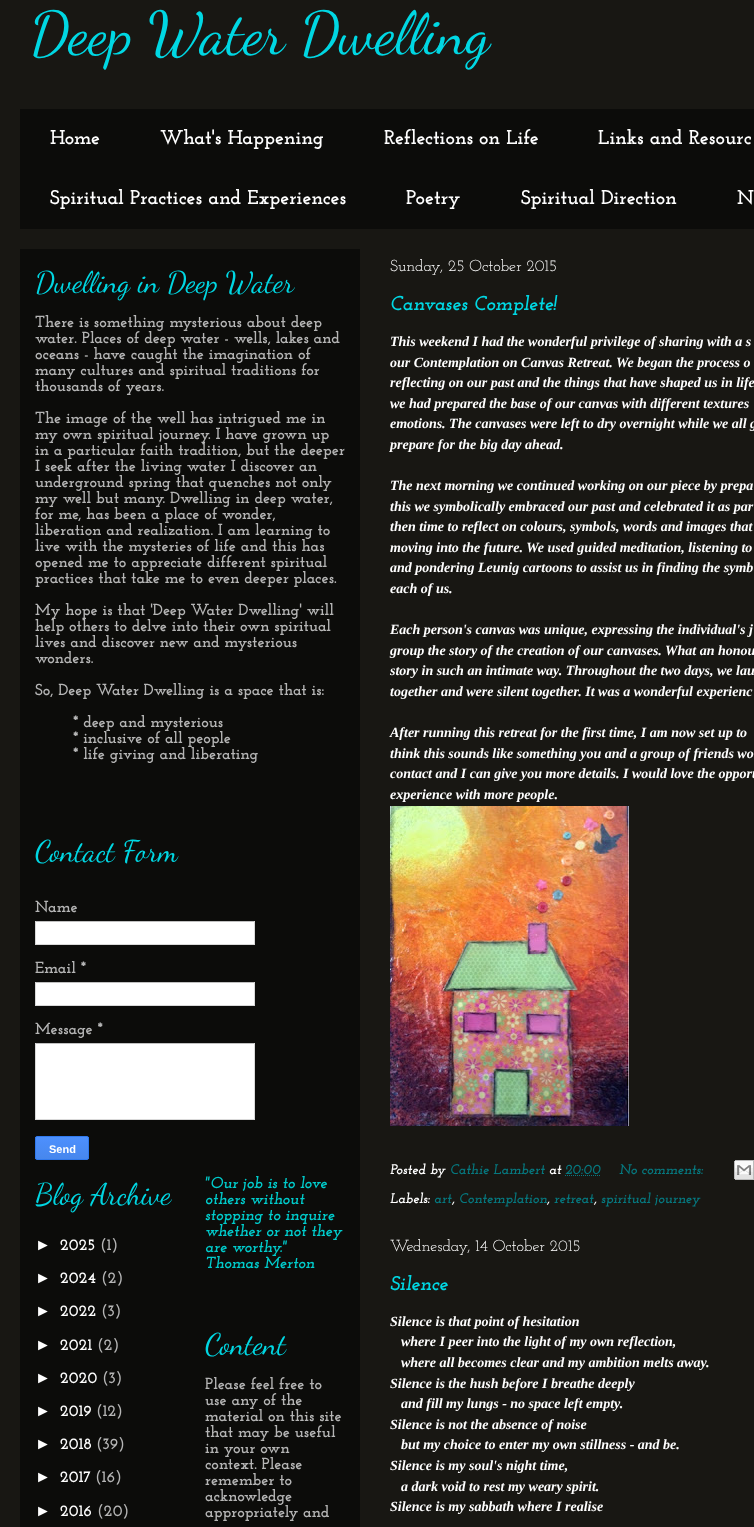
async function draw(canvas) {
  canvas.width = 754
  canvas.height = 1527
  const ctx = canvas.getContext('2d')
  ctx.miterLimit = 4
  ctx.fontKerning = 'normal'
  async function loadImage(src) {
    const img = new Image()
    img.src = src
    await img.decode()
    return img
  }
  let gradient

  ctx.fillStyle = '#181713'
  ctx.fillRect(0, 0, 754, 1527)
  ctx.font = '60px Dancing Script'
  ctx.fillStyle = '#00d7e3'
  ctx.fillText('Deep Water Dwelling', 30, 53)
  ctx.fillStyle = '#0c0c0a'
  ctx.fillRect(20, 109, 734, 120)
  ctx.font = 'bold 20px Josefin Slab'
  ctx.fillStyle = '#fff'
  ctx.fillText('Home', 50, 144)
  ctx.fillText('What\'s Happening', 160, 144)
  ctx.fillText('Reflections on Life', 384, 144)
  ctx.fillText('Links and Resourc', 598, 144)
  ctx.fillText('Spiritual Practices and Experiences', 50, 204)
  ctx.fillText('Poetry', 406, 204)
  ctx.fillText('Spiritual Direction', 521, 204)
  ctx.fillText('N', 737, 204)
  ctx.fillStyle = '#0c0c0a'
  ctx.fillRect(20, 249, 340, 1278)
  ctx.font = '30px Dancing Script'
  ctx.fillStyle = '#00d7e3'
  ctx.fillText('Dwelling in Deep Water', 35, 292)
  ctx.font = 'bold 16px Josefin Slab'
  ctx.fillStyle = '#b5b5b5'
  ctx.fillText('There is something mysterious about deep', 35, 327)
  ctx.fillText('water. Places of deep water - wells, lakes and', 35, 343)
  ctx.fillText('oceans - have caught the imagination of', 35, 359)
  ctx.fillText('many cultures and spiritual traditions for', 35, 375)
  ctx.fillText('thousands of years.', 35, 391)
  ctx.fillText('The image of the well has intrigued me in', 35, 423)
  ctx.fillText('my own spiritual journey. I have grown up', 35, 439)
  ctx.fillText('in a particular faith tradition, but the deeper', 35, 455)
  ctx.fillText('I seek after the living water I discover an', 35, 471)
  ctx.fillText('underground spring that quenches not only', 35, 487)
  ctx.fillText('my well but many. Dwelling in deep water,', 35, 503)
  ctx.fillText('for me, has been a place of wonder,', 35, 519)
  ctx.fillText('liberation and realization. I am learning to', 35, 535)
  ctx.fillText('live with the mysteries of life and this has', 35, 551)
  ctx.fillText('opened me to appreciate different spiritual', 35, 567)
  ctx.fillText('practices that take me to even deeper places.', 35, 583)
  ctx.fillText('My hope is that \'Deep Water Dwelling\' will', 35, 615)
  ctx.fillText('help others to delve into their own spiritual', 35, 631)
  ctx.fillText('lives and discover new and mysterious', 35, 647)
  ctx.fillText('wonders.', 35, 663)
  ctx.fillText('So, Deep Water Dwelling is a space that is:', 35, 695)
  ctx.fillText('* deep and mysterious', 73, 727)
  ctx.fillText('* inclusive of all people', 73, 743)
  ctx.fillText('* life giving and liberating', 73, 759)
  ctx.font = '30px Dancing Script'
  ctx.fillStyle = '#00d7e3'
  ctx.fillText('Contact Form', 35, 861)
  ctx.font = 'bold 16px Josefin Slab'
  ctx.fillStyle = '#b5b5b5'
  ctx.fillText('Name', 35, 912)
  ctx.fillStyle = '#fff'
  ctx.fillRect(36, 922, 218, 22)
  ctx.fillStyle = '#c0c0c0'
  ctx.fillRect(35, 921, 220, 1)
  ctx.fillStyle = '#d9d9d9'
  ctx.fillRect(254, 921, 1, 24)
  ctx.fillRect(35, 944, 220, 1)
  ctx.fillRect(35, 921, 1, 24)
  ctx.fillStyle = '#b5b5b5'
  ctx.fillText('Email *', 35, 973)
  ctx.fillStyle = '#fff'
  ctx.fillRect(36, 983, 218, 22)
  ctx.fillStyle = '#c0c0c0'
  ctx.fillRect(35, 982, 220, 1)
  ctx.fillStyle = '#d9d9d9'
  ctx.fillRect(254, 982, 1, 24)
  ctx.fillRect(35, 1005, 220, 1)
  ctx.fillRect(35, 982, 1, 24)
  ctx.fillStyle = '#b5b5b5'
  ctx.fillText('Message *', 35, 1034)
  ctx.fillStyle = '#fff'
  ctx.fillRect(36, 1044, 218, 75)
  ctx.fillStyle = '#c0c0c0'
  ctx.fillRect(35, 1043, 220, 1)
  ctx.fillStyle = '#d9d9d9'
  ctx.fillRect(254, 1043, 1, 77)
  ctx.fillRect(35, 1119, 220, 1)
  ctx.fillRect(35, 1043, 1, 77)
  ctx.save()
  ctx.beginPath()
  ctx.roundRect(35, 1136, 54, 24, 2)
  ctx.clip()
  gradient = ctx.createLinearGradient(62, 1137, 62, 1159)
  gradient.addColorStop(0, '#4d90fe')
  gradient.addColorStop(1, '#4787ed')
  ctx.fillStyle = gradient
  ctx.fillRect(35, 1137, 54, 22)
  ctx.restore()
  ctx.beginPath()
  ctx.roundRect(35.5, 1136.5, 53, 23, 1.5)
  ctx.strokeStyle = '#3079ed'
  ctx.stroke()
  ctx.font = 'bold 11px Liberation Sans'
  ctx.fillStyle = '#fff'
  ctx.fillText('Send', 49, 1153)
  ctx.font = '30px Dancing Script'
  ctx.fillStyle = '#00d7e3'
  ctx.fillText('Blog Archive', 35, 1204)
  ctx.font = 'bold 16px Liberation Sans'
  ctx.fillStyle = '#fff'
  ctx.fillText('►', 35, 1250)
  ctx.font = 'bold 16px Josefin Slab'
  ctx.fillText('2025', 60, 1250)
  ctx.fillStyle = '#b5b5b5'
  ctx.fillText('(1)', 100, 1250)
  ctx.font = 'bold 16px Liberation Sans'
  ctx.fillStyle = '#fff'
  ctx.fillText('►', 35, 1283)
  ctx.font = 'bold 16px Josefin Slab'
  ctx.fillText('2024', 60, 1283)
  ctx.fillStyle = '#b5b5b5'
  ctx.fillText('(2)', 101, 1283)
  ctx.font = 'bold 16px Liberation Sans'
  ctx.fillStyle = '#fff'
  ctx.fillText('►', 35, 1316)
  ctx.font = 'bold 16px Josefin Slab'
  ctx.fillText('2022', 60, 1316)
  ctx.fillStyle = '#b5b5b5'
  ctx.fillText('(3)', 101, 1316)
  ctx.font = 'bold 16px Liberation Sans'
  ctx.fillStyle = '#fff'
  ctx.fillText('►', 35, 1350)
  ctx.font = 'bold 16px Josefin Slab'
  ctx.fillText('2021', 60, 1350)
  ctx.fillStyle = '#b5b5b5'
  ctx.fillText('(2)', 97, 1350)
  ctx.font = 'bold 16px Liberation Sans'
  ctx.fillStyle = '#fff'
  ctx.fillText('►', 35, 1383)
  ctx.font = 'bold 16px Josefin Slab'
  ctx.fillText('2020', 60, 1383)
  ctx.fillStyle = '#b5b5b5'
  ctx.fillText('(3)', 102, 1383)
  ctx.font = 'bold 16px Liberation Sans'
  ctx.fillStyle = '#fff'
  ctx.fillText('►', 35, 1416)
  ctx.font = 'bold 16px Josefin Slab'
  ctx.fillText('2019', 60, 1416)
  ctx.fillStyle = '#b5b5b5'
  ctx.fillText('(12)', 96, 1416)
  ctx.font = 'bold 16px Liberation Sans'
  ctx.fillStyle = '#fff'
  ctx.fillText('►', 35, 1449)
  ctx.font = 'bold 16px Josefin Slab'
  ctx.fillText('2018', 60, 1449)
  ctx.fillStyle = '#b5b5b5'
  ctx.fillText('(39)', 96, 1449)
  ctx.font = 'bold 16px Liberation Sans'
  ctx.fillStyle = '#fff'
  ctx.fillText('►', 35, 1482)
  ctx.font = 'bold 16px Josefin Slab'
  ctx.fillText('2017', 60, 1482)
  ctx.fillStyle = '#b5b5b5'
  ctx.fillText('(16)', 95, 1482)
  ctx.font = 'bold 16px Liberation Sans'
  ctx.fillStyle = '#fff'
  ctx.fillText('►', 35, 1516)
  ctx.font = 'bold 16px Josefin Slab'
  ctx.fillText('2016', 60, 1516)
  ctx.fillStyle = '#b5b5b5'
  ctx.fillText('(20)', 97, 1516)
  ctx.font = 'italic 100 16px Josefin Slab'
  ctx.fillStyle = '#0cc'
  ctx.fillText('"Our job is to love', 205, 1188)
  ctx.fillText('others without', 205, 1204)
  ctx.fillText('stopping to inquire', 205, 1220)
  ctx.fillText('whether or not they', 205, 1236)
  ctx.fillText('are worthy."', 205, 1252)
  ctx.fillText('Thomas Merton', 205, 1268)
  ctx.font = '30px Dancing Script'
  ctx.fillStyle = '#00d7e3'
  ctx.fillText('Content', 205, 1354)
  ctx.font = 'bold 16px Josefin Slab'
  ctx.fillStyle = '#b5b5b5'
  ctx.fillText('Please feel free to', 205, 1389)
  ctx.fillText('use any of the', 205, 1405)
  ctx.fillText('material on this site', 205, 1421)
  ctx.fillText('that may be useful', 205, 1437)
  ctx.fillText('in your own', 205, 1453)
  ctx.fillText('context. Please', 205, 1469)
  ctx.fillText('remember to', 205, 1485)
  ctx.fillText('acknowledge', 205, 1501)
  ctx.fillText('appropriately and', 205, 1517)
  ctx.font = '16px Josefin Slab'
  ctx.fillStyle = '#fff'
  ctx.fillText('Sunday, 25 October 2015', 390, 271)
  ctx.font = 'italic 100 20px Josefin Slab'
  ctx.fillStyle = '#00d7e3'
  ctx.fillText('Canvases Complete!', 390, 310)
  ctx.font = 'italic bold 14px Liberation Serif'
  ctx.fillStyle = '#fff'
  ctx.fillText('This weekend I had the wonderful privilege of sharing with a s', 390, 346)
  ctx.fillText('our Contemplation on Canvas Retreat. We began the process o', 390, 367)
  ctx.fillText('reflecting on our past and the things that have shaped us in life', 390, 387)
  ctx.fillText('we had prepared the base of our canvas with different textures', 390, 408)
  ctx.fillText('emotions. The canvases were left to dry overnight while we all g', 390, 428)
  ctx.fillText('prepare for the big day ahead.', 390, 449)
  ctx.fillText('The next morning we continued working on our piece by prepa', 390, 490)
  ctx.fillText('this we symbolically embraced our past and celebrated it as par', 390, 511)
  ctx.fillText('then time to reflect on colours, symbols, words and images that', 390, 531)
  ctx.fillText('moving into the future. We used guided meditation, listening to', 390, 552)
  ctx.fillText('and pondering Leunig cartoons to assist us in finding the symb', 390, 572)
  ctx.fillText('each of us.', 390, 593)
  ctx.fillText('Each person\'s canvas was unique, expressing the individual\'s j', 390, 634)
  ctx.fillText('group the story of the creation of our canvases. What an honou', 390, 655)
  ctx.fillText('story in such an intimate way. Throughout the two days, we lau', 390, 675)
  ctx.fillText('together and were silent together. It was a wonderful experienc', 390, 696)
  ctx.fillText('After running this retreat for the first time, I am now set up to', 390, 737)
  ctx.fillText('think this sounds like something you and a group of friends wo', 390, 758)
  ctx.fillText('contact and I can give you more details. I would love the opport', 390, 778)
  ctx.fillText('experience with more people.', 390, 799)
  ctx.drawImage(await loadImage('image0.png'), 390, 806, 239, 320)
  ctx.font = 'italic 100 14px Josefin Slab'
  ctx.fillText('Posted by', 390, 1174)
  ctx.fillStyle = '#06787f'
  ctx.fillText('Cathie Lambert', 450, 1174)
  ctx.fillStyle = '#fff'
  ctx.fillText('at', 549, 1174)
  ctx.fillStyle = '#06787f'
  ctx.fillText('20:00', 565, 1174)
  ctx.beginPath()
  ctx.moveTo(565, 1175.5)
  ctx.lineTo(600.5, 1175.5)
  ctx.strokeStyle = '#06787f'
  ctx.setLineDash([1, 1])
  ctx.stroke()
  ctx.fillText('No comments:', 619, 1174)
  ctx.drawImage(await loadImage('image1.png'), 734, 1160, 20, 20)
  ctx.fillStyle = '#fff'
  ctx.fillText('Labels:', 390, 1203)
  ctx.fillStyle = '#06787f'
  ctx.fillText('art', 434, 1203)
  ctx.fillText('Contemplation', 459, 1203)
  ctx.fillText('retreat', 554, 1203)
  ctx.fillText('spiritual journey', 601, 1203)
  ctx.fillStyle = '#fff'
  ctx.fillText(',', 452, 1203)
  ctx.fillText(',', 547, 1203)
  ctx.fillText(',', 594, 1203)
  ctx.font = '16px Josefin Slab'
  ctx.fillText('Wednesday, 14 October 2015', 390, 1251)
  ctx.font = 'italic 100 20px Josefin Slab'
  ctx.fillStyle = '#00d7e3'
  ctx.fillText('Silence', 390, 1290)
  ctx.font = 'italic bold 14px Liberation Serif'
  ctx.fillStyle = '#fff'
  ctx.fillText('Silence is that point of hesitation', 390, 1326)
  ctx.fillText('where I peer into the light of my own reflection,', 401, 1346)
  ctx.fillText('where all becomes clear and my ambition melts away.', 401, 1367)
  ctx.fillText('Silence is the hush before I breathe deeply', 390, 1388)
  ctx.fillText('and fill my lungs - no space left empty.', 401, 1408)
  ctx.fillText('Silence is not the absence of noise', 390, 1429)
  ctx.fillText('but my choice to enter my own stillness - and be.', 401, 1449)
  ctx.fillText('Silence is my soul\'s night time,', 390, 1470)
  ctx.fillText('a dark void to rest my weary spirit.', 401, 1491)
  ctx.fillText('Silence is my sabbath where I realise', 390, 1511)
}

draw(document.querySelector('canvas'))
